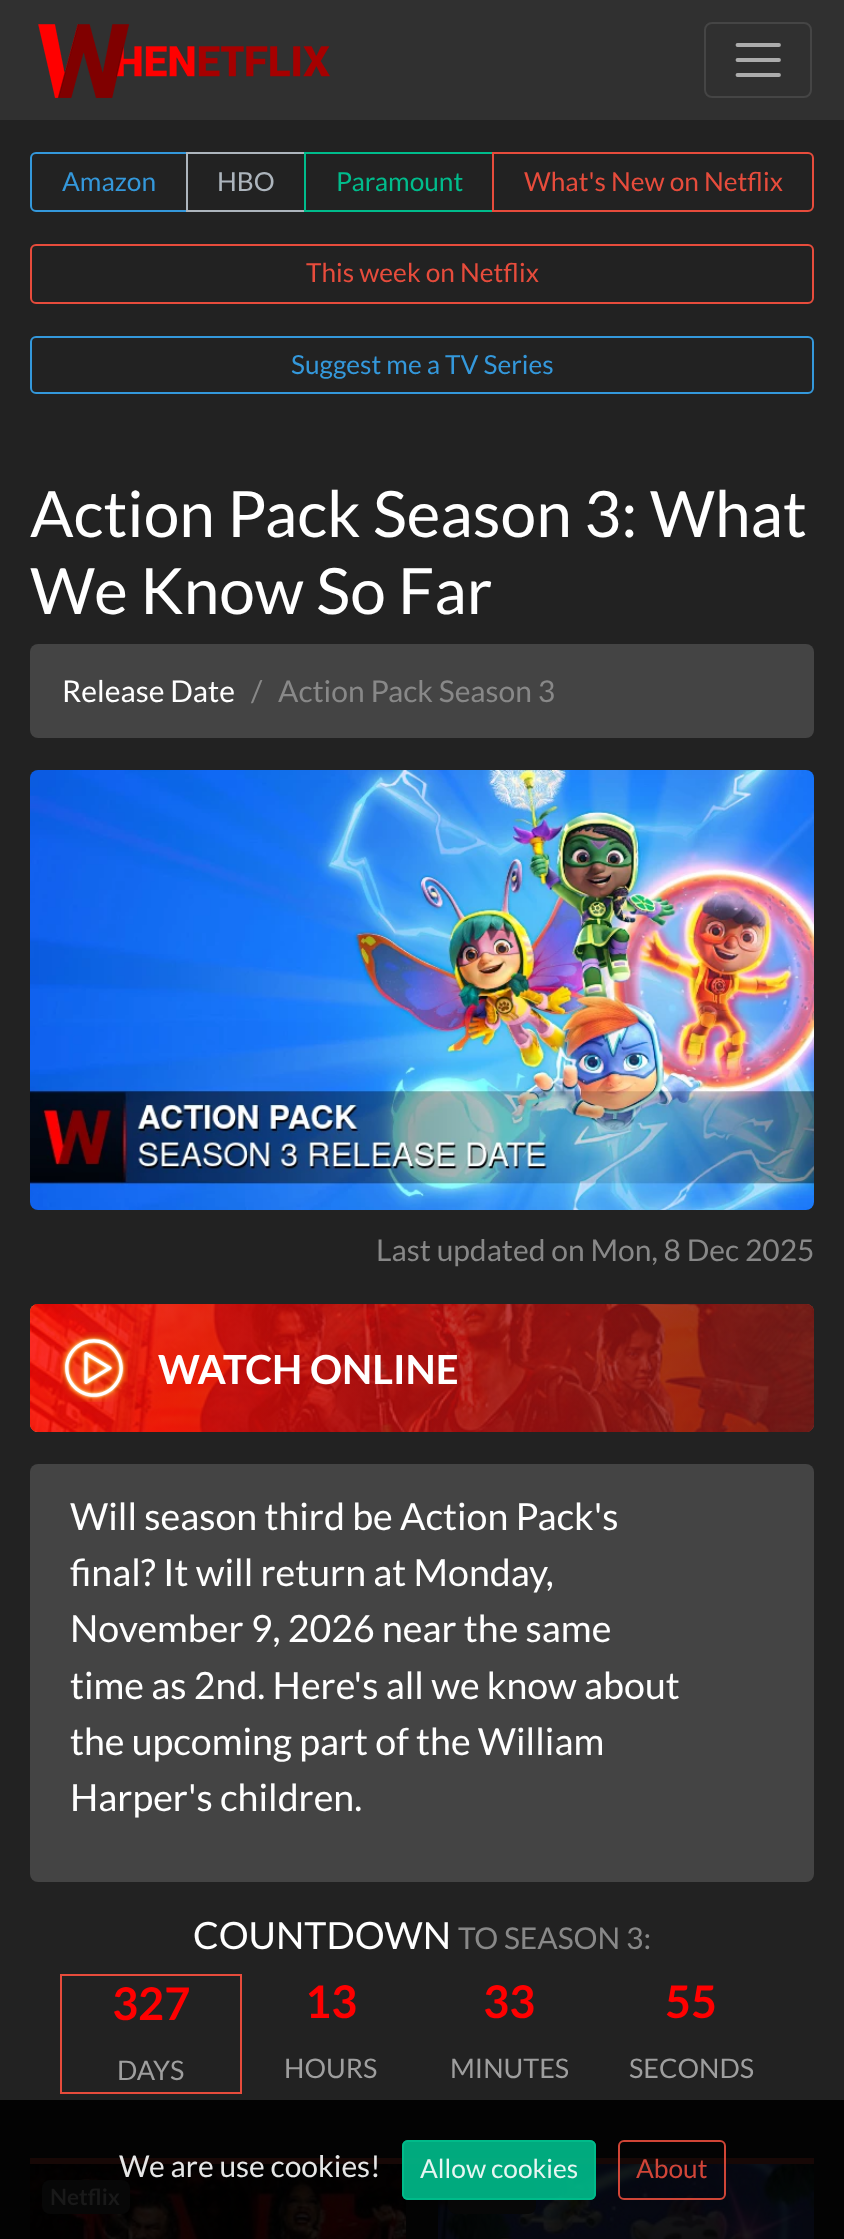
async function draw(canvas) {
  canvas.width = 844
  canvas.height = 2239
  const ctx = canvas.getContext('2d')
  ctx.miterLimit = 4
  ctx.fontKerning = 'normal'
  async function loadImage(src) {
    const img = new Image()
    img.src = src
    await img.decode()
    return img
  }
  let gradient

  ctx.fillStyle = '#222'
  ctx.fillRect(0, 0, 844, 2239)
  ctx.fillStyle = '#030303'
  ctx.fillRect(0, 2100, 844, 139)
  ctx.fillStyle = '#303030'
  ctx.fillRect(0, 0, 844, 120)
  ctx.drawImage(await loadImage('image0.png'), 38, 24, 292, 74)
  ctx.beginPath()
  ctx.roundRect(705, 23, 106, 74, 7)
  ctx.strokeStyle = '#454545'
  ctx.lineWidth = 2
  ctx.stroke()
  ctx.beginPath()
  ctx.moveTo(737.5, 45)
  ctx.lineTo(779, 45)
  ctx.moveTo(737.5, 60)
  ctx.lineTo(779, 60)
  ctx.moveTo(737.5, 75)
  ctx.lineTo(779, 75)
  ctx.strokeStyle = '#acacac'
  ctx.lineWidth = 3.8
  ctx.lineCap = 'round'
  ctx.stroke()
  ctx.beginPath()
  ctx.roundRect(31, 153, 156, 58, [5, 0, 0, 5])
  ctx.strokeStyle = '#3498db'
  ctx.lineWidth = 2
  ctx.stroke()
  ctx.font = '26.25px Lato'
  ctx.fillStyle = '#3498db'
  ctx.fillText('Amazon', 62, 191)
  ctx.strokeStyle = '#adb5bd'
  ctx.strokeRect(187, 153, 118, 58)
  ctx.fillStyle = '#adb5bd'
  ctx.fillText('HBO', 217, 191)
  ctx.strokeStyle = '#00bc8c'
  ctx.strokeRect(305, 153, 188, 58)
  ctx.fillStyle = '#00bc8c'
  ctx.fillText('Paramount', 336, 191)
  ctx.beginPath()
  ctx.roundRect(493, 153, 320, 58, [0, 5, 5, 0])
  ctx.strokeStyle = '#e74c3c'
  ctx.stroke()
  ctx.fillStyle = '#e74c3c'
  ctx.fillText('What\'s New on Netflix', 524, 191)
  ctx.beginPath()
  ctx.roundRect(31, 245, 782, 58, 5)
  ctx.stroke()
  ctx.fillText('This week on Netflix', 306, 282)
  ctx.beginPath()
  ctx.roundRect(31, 337, 782, 56, 5)
  ctx.strokeStyle = '#3498db'
  ctx.stroke()
  ctx.fillStyle = '#3498db'
  ctx.fillText('Suggest me a TV Series', 291, 374)
  ctx.font = '64px Lato'
  ctx.fillStyle = '#fff'
  ctx.fillText('Action Pack Season 3: What', 30, 537)
  ctx.fillText('We Know So Far', 30, 614)
  ctx.fillStyle = '#444'
  ctx.beginPath()
  ctx.roundRect(30, 644, 784, 94, 8)
  ctx.fill()
  ctx.font = '30px Lato'
  ctx.fillStyle = '#fff'
  ctx.fillText('Release Date', 62, 702)
  ctx.fillStyle = '#888'
  ctx.fillText('/', 251, 702)
  ctx.fillText('Action Pack Season 3', 278, 702)
  ctx.drawImage(await loadImage('image1.png'), 30, 770, 784, 440)
  ctx.fillText('Last updated on Mon, 8 Dec 2025', 376, 1261)
  ctx.fillStyle = '#e22b2b'
  ctx.beginPath()
  ctx.roundRect(30, 1304, 784, 128, 8)
  ctx.fill()
  ctx.drawImage(await loadImage('image2.png'), 30, 1304, 784, 128)
  gradient = ctx.createLinearGradient(30, 1368, 814, 1368)
  gradient.addColorStop(0, '#ff0000cf')
  gradient.addColorStop(1, '#731414cf')
  ctx.fillStyle = gradient
  ctx.beginPath()
  ctx.roundRect(30, 1304, 784, 128, 8)
  ctx.fill()
  ctx.drawImage(await loadImage('image3.png'), 60, 1332, 68, 70)
  ctx.font = 'bold 40px Lato'
  ctx.fillStyle = '#fff'
  ctx.fillText('WATCH ONLINE', 158, 1384)
  ctx.fillStyle = '#444'
  ctx.beginPath()
  ctx.roundRect(30, 1464, 784, 418, 8)
  ctx.fill()
  ctx.font = '37.5px Lato'
  ctx.fillStyle = '#fff'
  ctx.fillText('Will season third be Action Pack\'s', 70, 1530)
  ctx.fillText('final? It will return at Monday,', 70, 1586)
  ctx.fillText('November 9, 2026 near the same', 70, 1642)
  ctx.fillText('time as 2nd. Here\'s all we know about', 70, 1699)
  ctx.fillText('the upcoming part of the William', 70, 1755)
  ctx.fillText('Harper\'s children.', 70, 1811)
  ctx.fillText('COUNTDOWN', 193, 1949)
  ctx.font = '30px Lato'
  ctx.fillStyle = '#888'
  ctx.fillText('TO SEASON 3:', 458, 1949)
  ctx.strokeStyle = '#e74c3c'
  ctx.strokeRect(61, 1975, 180, 118)
  ctx.font = 'bold 45px Lato'
  ctx.fillStyle = '#f00'
  ctx.fillText('327', 112, 2020)
  ctx.font = '27px Lato'
  ctx.fillStyle = '#9e9e9e'
  ctx.fillText('DAYS', 117, 2080)
  ctx.font = 'bold 45px Lato'
  ctx.fillStyle = '#f00'
  ctx.fillText('13', 305, 2018)
  ctx.font = '27px Lato'
  ctx.fillStyle = '#9e9e9e'
  ctx.fillText('HOURS', 284, 2078)
  ctx.font = 'bold 45px Lato'
  ctx.fillStyle = '#f00'
  ctx.fillText('33', 483, 2018)
  ctx.font = '27px Lato'
  ctx.fillStyle = '#9e9e9e'
  ctx.fillText('MINUTES', 450, 2078)
  ctx.font = 'bold 45px Lato'
  ctx.fillStyle = '#f00'
  ctx.fillText('55', 665, 2018)
  ctx.font = '27px Lato'
  ctx.fillStyle = '#9e9e9e'
  ctx.fillText('SECONDS', 629, 2078)
  ctx.fillStyle = '#170806'
  ctx.fillRect(30, 2158, 784, 6)
  ctx.drawImage(await loadImage('image4.png'), 30, 2164, 376, 75)
  ctx.fillStyle = '#070707'
  ctx.beginPath()
  ctx.roundRect(42, 2180, 88, 34, 8)
  ctx.fill()
  ctx.font = 'bold 22.5px Lato'
  ctx.fillStyle = '#191919'
  ctx.fillText('Netflix', 50, 2205)
  ctx.drawImage(await loadImage('image5.png'), 438, 2164, 376, 75)
  ctx.fillStyle = '#070707'
  ctx.beginPath()
  ctx.roundRect(448, 2180, 88, 34, 8)
  ctx.fill()
  ctx.font = '30px Lato'
  ctx.fillStyle = '#e6e6e6'
  ctx.fillText('We are use cookies!', 119, 2177)
  ctx.fillStyle = '#00bc8ce6'
  ctx.beginPath()
  ctx.roundRect(402, 2140, 194, 60, 6)
  ctx.fill()
  ctx.beginPath()
  ctx.roundRect(403, 2141, 192, 58, 5)
  ctx.strokeStyle = '#00bc8ce6'
  ctx.stroke()
  ctx.font = '26.25px Lato'
  ctx.fillStyle = '#e6f6f2'
  ctx.fillText('Allow cookies', 420, 2178)
  ctx.beginPath()
  ctx.roundRect(619, 2141, 106, 58, 5)
  ctx.strokeStyle = '#e74c3ce6'
  ctx.stroke()
  ctx.fillStyle = '#d14538'
  ctx.fillText('About', 636, 2178)
}

draw(document.querySelector('canvas'))
